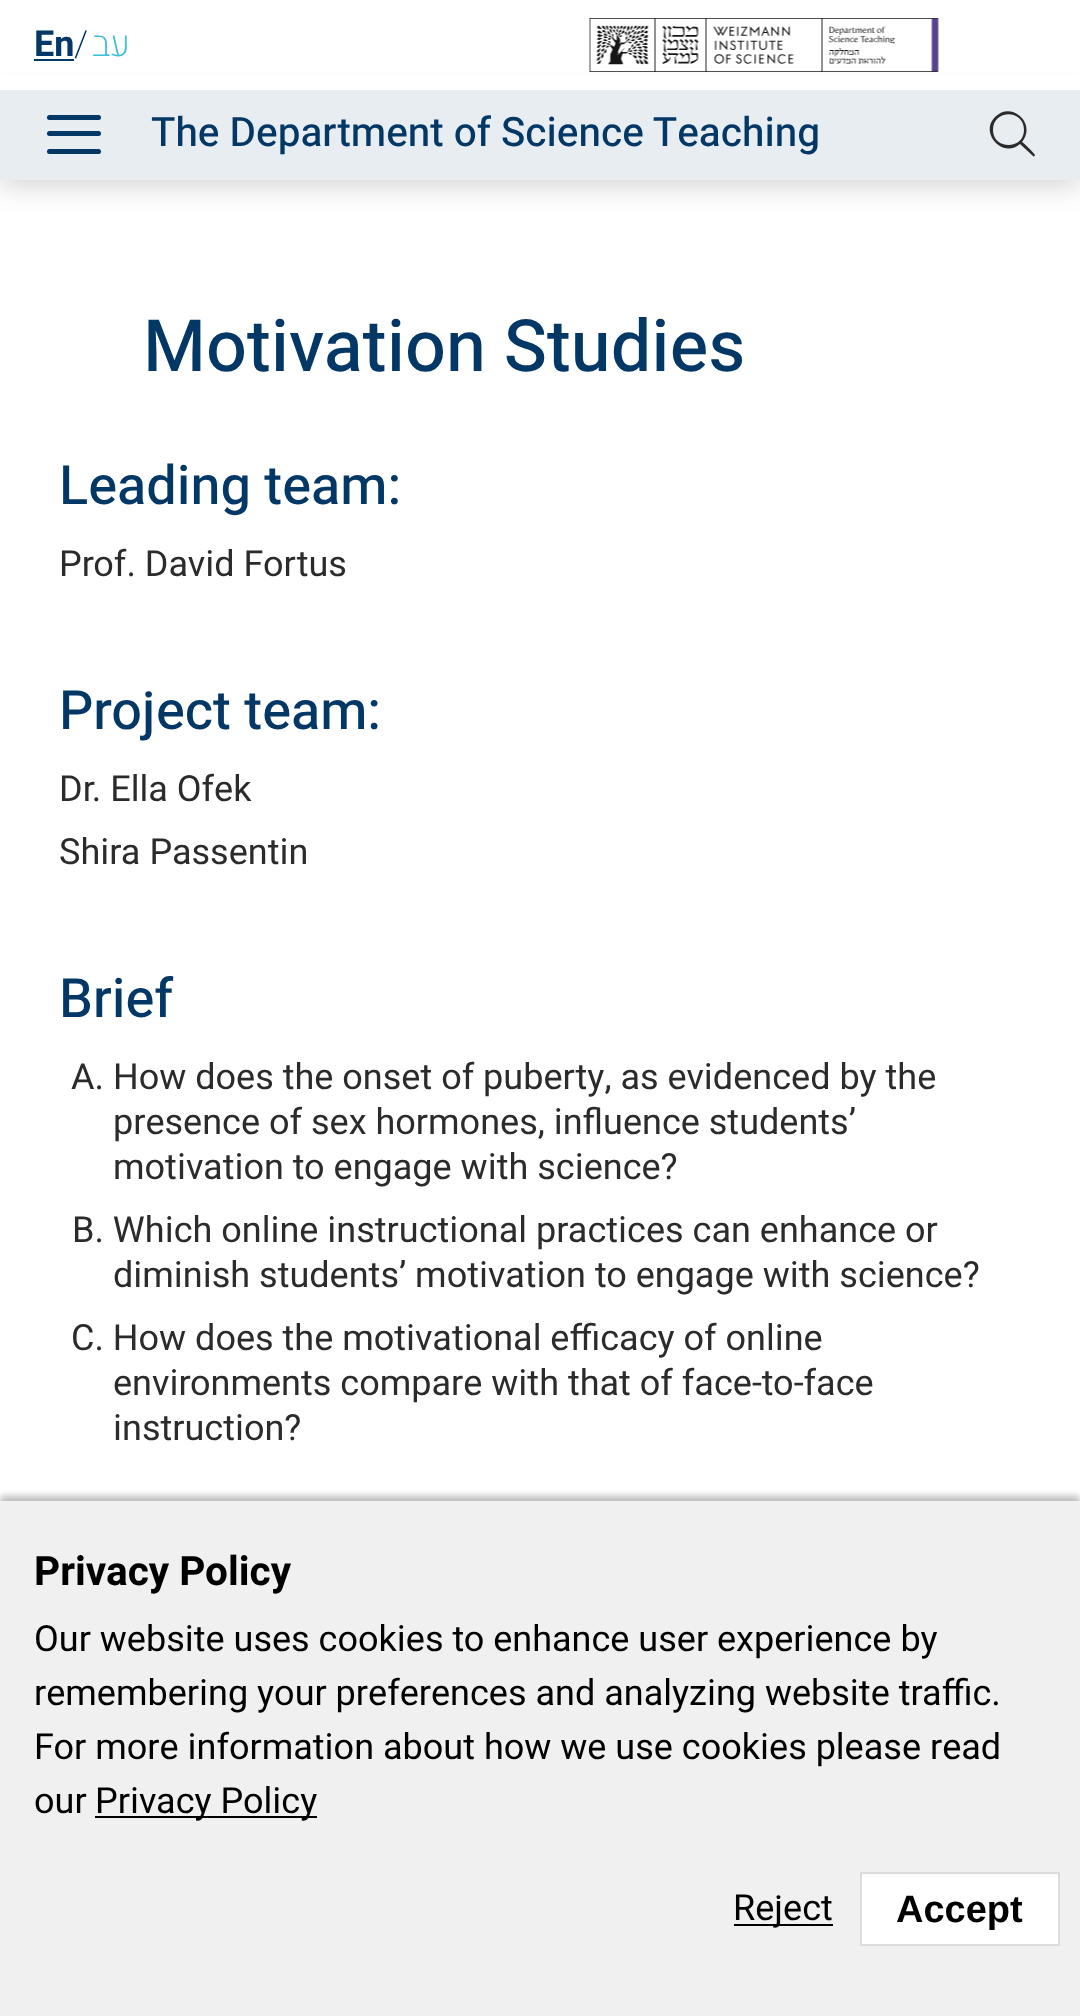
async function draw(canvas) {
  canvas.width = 1080
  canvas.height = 2016
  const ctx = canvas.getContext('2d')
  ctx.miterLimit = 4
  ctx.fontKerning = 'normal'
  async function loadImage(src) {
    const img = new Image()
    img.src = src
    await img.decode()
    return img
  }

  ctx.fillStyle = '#fff'
  ctx.fillRect(0, 0, 1080, 2016)
  ctx.fillStyle = '#00000029'
  ctx.filter = 'blur(13.5px)'
  ctx.beginPath()
  ctx.rect(0, 97, 1080, 90)
  ctx.fill()
  ctx.filter = 'none'
  ctx.fillStyle = '#fff'
  ctx.fillRect(0, 76, 1080, 14)
  ctx.font = 'bold 36px Heebo'
  ctx.fillStyle = '#033766'
  ctx.fillText('En', 34, 56)
  ctx.fillRect(34, 59, 40, 2)
  ctx.font = '200 36px Heebo'
  ctx.fillText('/', 74, 56)
  ctx.direction = 'rtl'
  ctx.fillStyle = '#3dbdde'
  ctx.fillText('עב', 130, 56)
  ctx.fillStyle = '#e8edf1'
  ctx.fillRect(0, 90, 1080, 90)
  ctx.fillStyle = '#2b2b2b'
  ctx.beginPath()
  ctx.moveTo(1024, 130)
  ctx.bezierCurveTo(1024, 109, 993, 109, 993, 130)
  ctx.bezierCurveTo(993, 150, 1024, 150, 1024, 130)
  ctx.closePath()
  ctx.moveTo(1020, 144)
  ctx.bezierCurveTo(1003, 159, 979, 133, 995, 117)
  ctx.bezierCurveTo(1012, 100, 1037, 124, 1022, 142)
  ctx.bezierCurveTo(1024, 143, 1035, 154, 1035, 155)
  ctx.bezierCurveTo(1035, 156, 1033, 157, 1033, 156)
  ctx.closePath()
  ctx.fill()
  ctx.drawImage(await loadImage('image0.png'), 589, 18, 350, 54)
  ctx.fillStyle = '#033766'
  ctx.beginPath()
  ctx.roundRect(47, 115, 54, 5, 2.5)
  ctx.fill()
  ctx.beginPath()
  ctx.roundRect(47, 131, 54, 5, 2.5)
  ctx.fill()
  ctx.beginPath()
  ctx.roundRect(47, 149, 54, 5, 2.5)
  ctx.fill()
  ctx.direction = 'ltr'
  ctx.font = '500 40.5px Heebo'
  ctx.fillText('The Department of Science Teaching', 151, 146)
  ctx.font = '500 72px Heebo'
  ctx.fillText('Motivation Studies', 143, 371)
  ctx.font = '500 54px Heebo'
  ctx.fillText('Leading team:', 59, 504)
  ctx.font = '36px Heebo'
  ctx.fillStyle = '#2b2b2b'
  ctx.fillText('Prof. David Fortus', 59, 576)
  ctx.font = '500 54px Heebo'
  ctx.fillStyle = '#033766'
  ctx.fillText('Project team:', 59, 729)
  ctx.font = '36px Heebo'
  ctx.fillStyle = '#2b2b2b'
  ctx.fillText('Dr. Ella Ofek', 59, 801)
  ctx.fillText('Shira Passentin', 59, 864)
  ctx.font = '500 54px Heebo'
  ctx.fillStyle = '#033766'
  ctx.fillText('Brief', 59, 1017)
  ctx.font = '36px Heebo'
  ctx.fillStyle = '#2b2b2b'
  ctx.fillText('A. How does the onset of puberty, as evidenced by the', 71, 1089)
  ctx.fillText('presence of sex hormones, influence students’', 113, 1134)
  ctx.fillText('motivation to engage with science?', 113, 1179)
  ctx.fillText('B. Which online instructional practices can enhance or', 72, 1242)
  ctx.fillText('diminish students’ motivation to engage with science?', 113, 1287)
  ctx.fillText('C. How does the motivational efficacy of online', 71, 1350)
  ctx.fillText('environments compare with that of face-to-face', 113, 1395)
  ctx.fillText('instruction?', 113, 1440)
  ctx.fillStyle = '#f0f0f0'
  ctx.fillRect(0, 1501, 1080, 515)
  ctx.save()
  ctx.beginPath()
  ctx.rect(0, 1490, 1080, 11)
  ctx.clip()
  ctx.fillStyle = '#5f5f5f6b'
  ctx.filter = 'blur(3.5px)'
  ctx.beginPath()
  ctx.rect(0, 1496, 1080, 516)
  ctx.fill()
  ctx.filter = 'none'
  ctx.restore()
  ctx.font = 'bold 40.5px Heebo'
  ctx.fillStyle = '#000'
  ctx.fillText('Privacy Policy', 34, 1585)
  ctx.font = '36px Heebo'
  ctx.fillText('Our website uses cookies to enhance user experience by', 34, 1651)
  ctx.fillText('remembering your preferences and analyzing website traffic.', 34, 1705)
  ctx.fillText('For more information about how we use cookies please read', 34, 1759)
  ctx.fillText('our', 34, 1813)
  ctx.fillRect(95, 1816, 222, 2)
  ctx.fillText('Privacy Policy', 95, 1813)
  ctx.fillRect(734, 1924, 99, 2)
  ctx.fillText('Reject', 733, 1920)
  ctx.fillStyle = '#fff'
  ctx.beginPath()
  ctx.rect(861, 1873, 198, 72)
  ctx.fill()
  ctx.strokeStyle = '#dcdcdc'
  ctx.lineWidth = 2
  ctx.stroke()
  ctx.font = 'bold 38px Liberation Sans'
  ctx.fillStyle = '#000'
  ctx.fillText('Accept', 896, 1922)
}

draw(document.querySelector('canvas'))
